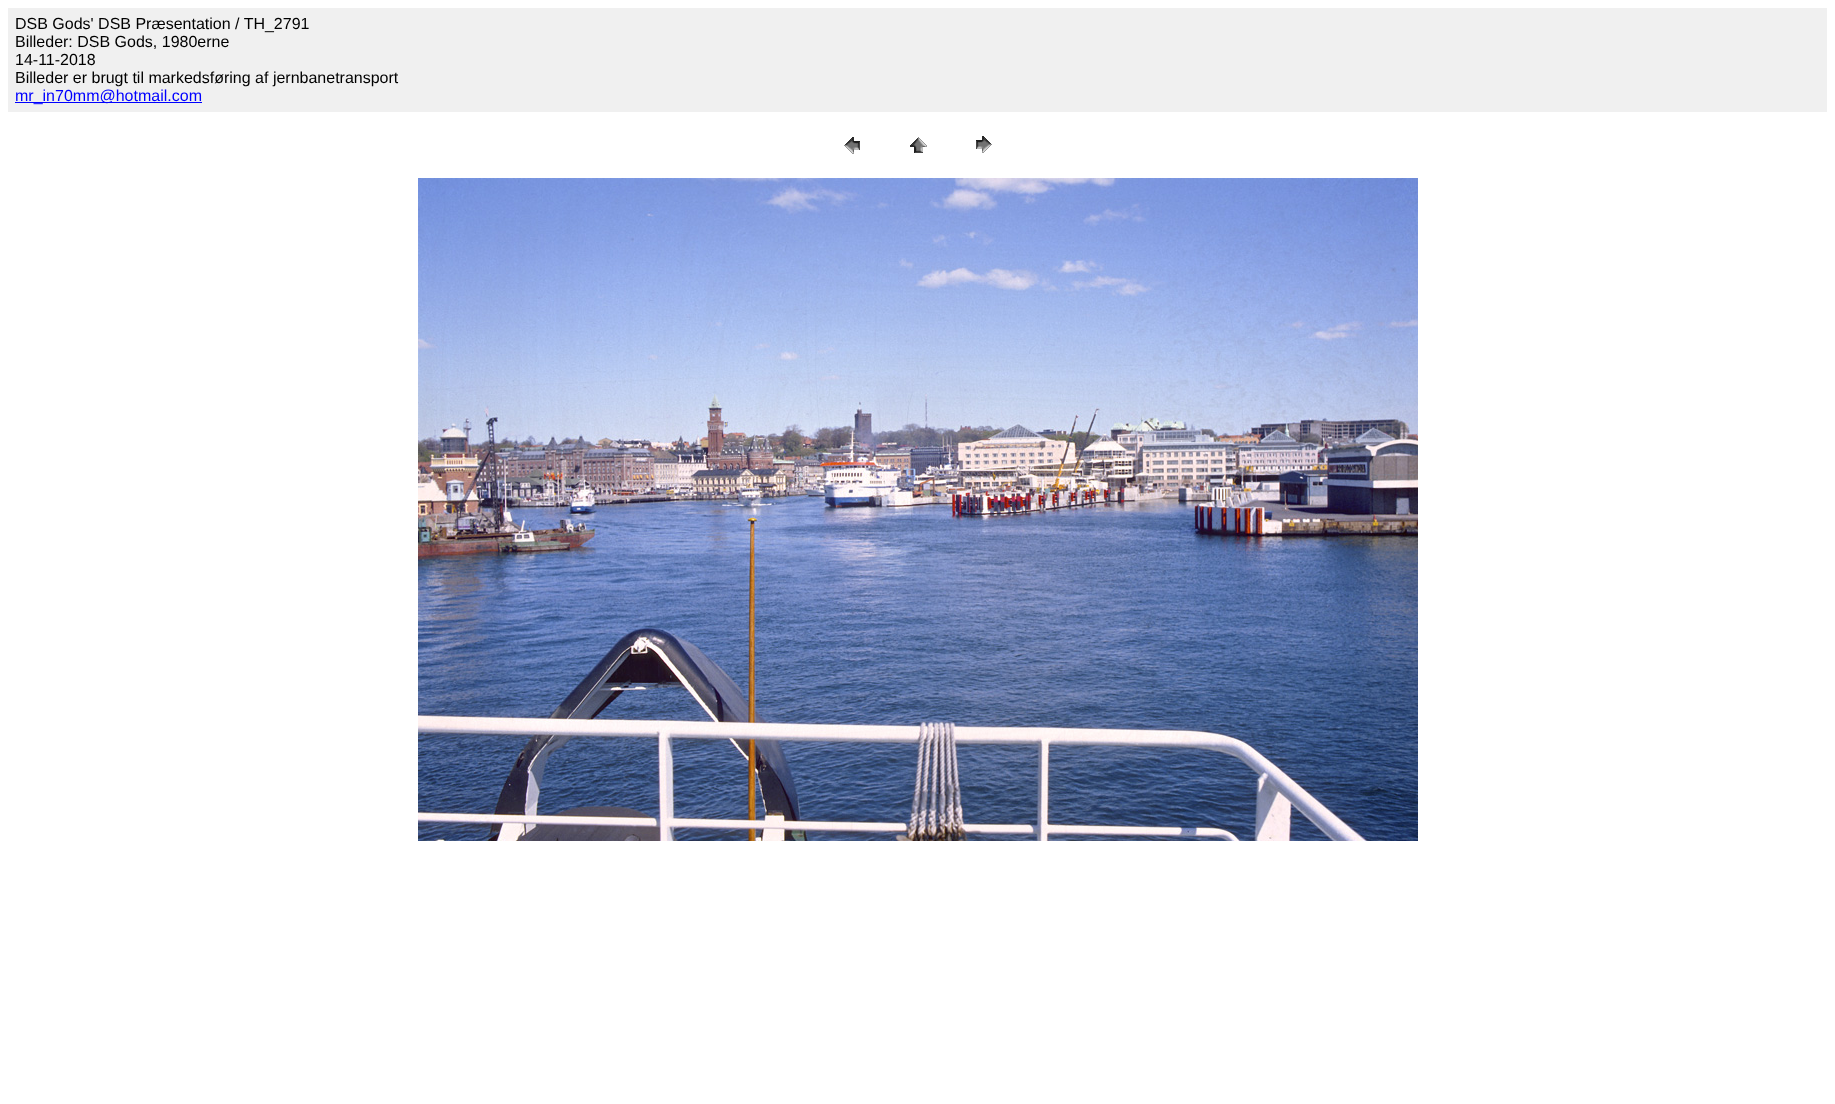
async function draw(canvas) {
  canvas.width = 1835
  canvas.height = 1104
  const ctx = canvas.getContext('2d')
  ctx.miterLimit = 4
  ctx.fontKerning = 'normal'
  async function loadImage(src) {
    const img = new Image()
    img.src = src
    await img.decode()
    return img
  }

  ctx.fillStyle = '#fff'
  ctx.fillRect(0, 0, 1835, 1104)
  ctx.fillStyle = '#f0f0f0'
  ctx.fillRect(8, 8, 1819, 104)
  ctx.font = '16px Liberation Sans'
  ctx.fillStyle = '#000'
  ctx.fillText('DSB Gods\' DSB Præsentation / TH_2791', 15, 29)
  ctx.fillText('Billeder: DSB Gods, 1980erne', 15, 47)
  ctx.fillText('14-11-2018', 15, 65)
  ctx.fillText('Billeder er brugt til markedsføring af jernbanetransport', 15, 83)
  ctx.fillStyle = '#00f'
  ctx.fillRect(15, 102, 187, 1)
  ctx.fillText('mr_in70mm@hotmail.com', 15, 101)
  ctx.drawImage(await loadImage('image0.png'), 844, 137, 16, 17)
  ctx.drawImage(await loadImage('image1.png'), 910, 137, 17, 16)
  ctx.drawImage(await loadImage('image2.png'), 976, 136, 16, 17)
  ctx.drawImage(await loadImage('image3.png'), 418, 178, 1000, 663)
}

draw(document.querySelector('canvas'))
